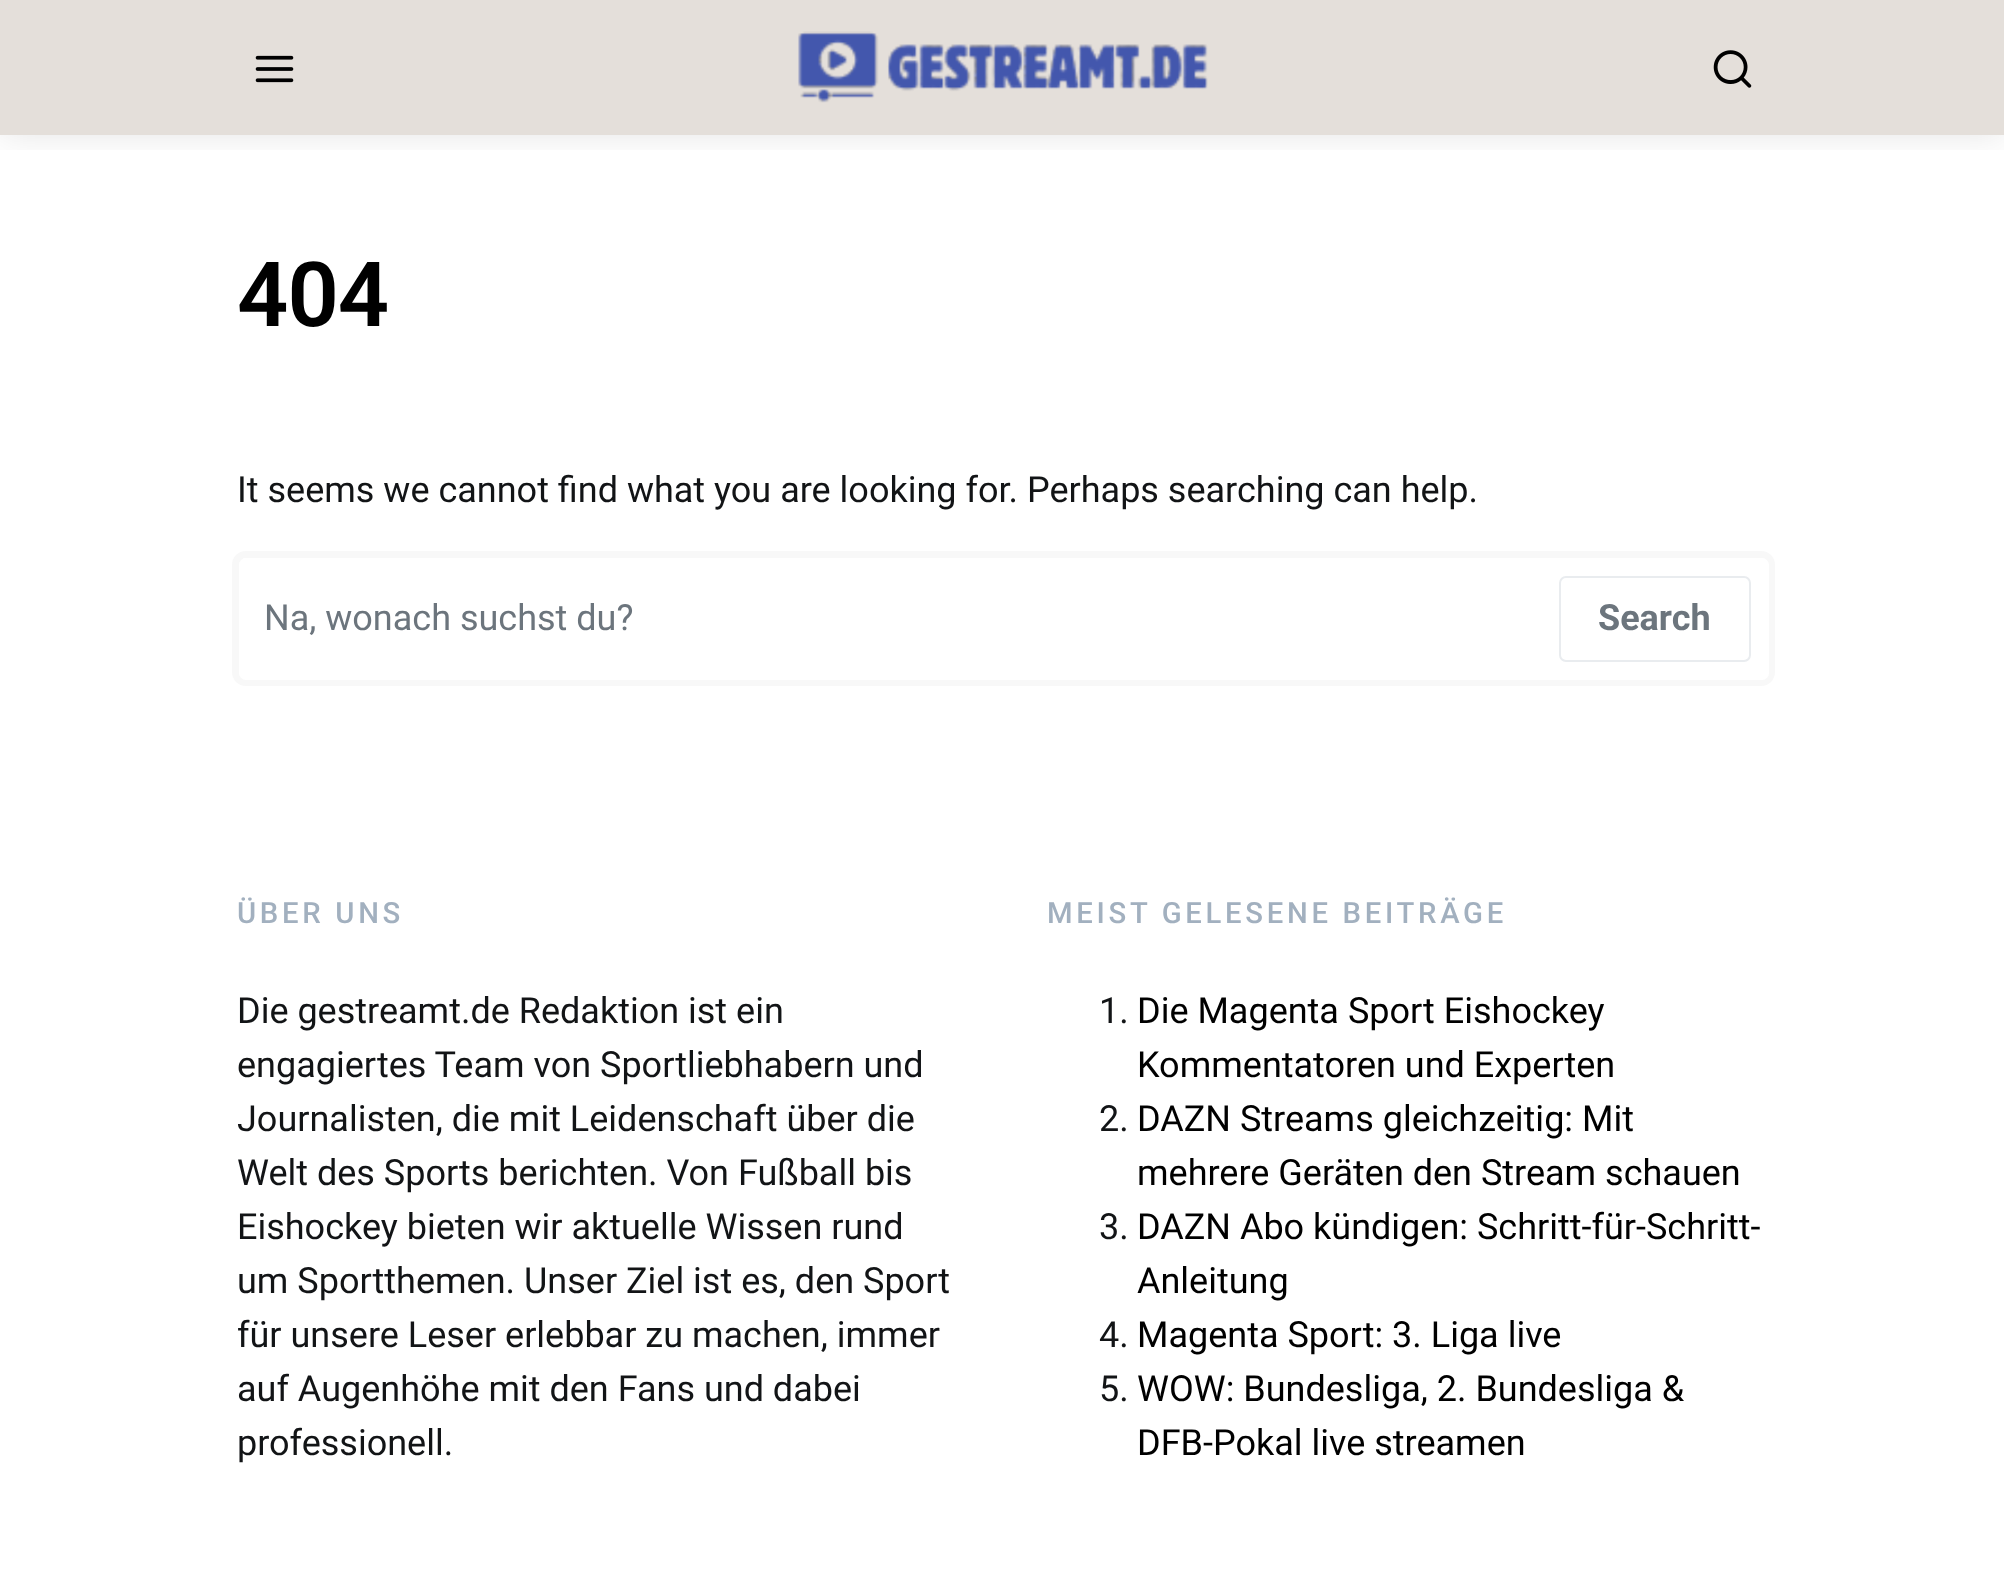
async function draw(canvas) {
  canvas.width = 2004
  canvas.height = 1581
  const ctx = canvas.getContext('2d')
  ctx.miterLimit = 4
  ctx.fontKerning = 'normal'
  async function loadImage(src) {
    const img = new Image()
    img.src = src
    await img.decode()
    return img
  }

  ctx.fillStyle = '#fff'
  ctx.fillRect(0, 0, 2004, 1581)
  ctx.fillStyle = '#e4dfda'
  ctx.fillRect(0, 0, 2004, 135)
  ctx.save()
  ctx.beginPath()
  ctx.rect(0, 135, 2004, 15)
  ctx.clip()
  ctx.fillStyle = '#0000001a'
  ctx.filter = 'blur(18px)'
  ctx.beginPath()
  ctx.rect(0, 0, 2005, 135)
  ctx.fill()
  ctx.filter = 'none'
  ctx.restore()
  ctx.drawImage(await loadImage('image0.png'), 255, 55, 39, 28)
  ctx.drawImage(await loadImage('image1.png'), 798, 31, 410, 72)
  ctx.drawImage(await loadImage('image2.png'), 1713, 50, 39, 38)
  ctx.letterSpacing = '-1px'
  ctx.font = '600 90px Roboto'
  ctx.fillStyle = '#000'
  ctx.fillText('404', 237, 326)
  ctx.letterSpacing = '0px'
  ctx.font = '36px Roboto'
  ctx.fillStyle = '#121416'
  ctx.fillText('It seems we cannot find what you are looking for. Perhaps searching can help.', 237, 502)
  ctx.beginPath()
  ctx.roundRect(235.5, 554.5, 1536, 128, 10.5)
  ctx.strokeStyle = '#f8f8f8'
  ctx.lineWidth = 7
  ctx.stroke()
  ctx.fillStyle = '#fff'
  ctx.beginPath()
  ctx.roundRect(239, 558, 1530, 122, 7)
  ctx.fill()
  ctx.fillStyle = '#6c757d'
  ctx.fillText('Na, wonach suchst du?', 264, 630)
  ctx.beginPath()
  ctx.roundRect(1560, 577, 190, 84, 6)
  ctx.strokeStyle = '#e9ecef'
  ctx.lineWidth = 2
  ctx.stroke()
  ctx.font = 'bold 36px Roboto'
  ctx.fillText('Search', 1598, 630)
  ctx.letterSpacing = '3.7px'
  ctx.font = '500 29.25px Roboto'
  ctx.fillStyle = '#a2b0bf'
  ctx.fillText('ÜBER UNS', 237, 923)
  ctx.letterSpacing = '0px'
  ctx.font = '36px Roboto'
  ctx.fillStyle = '#121416'
  ctx.fillText('Die gestreamt.de Redaktion ist ein', 237, 1023)
  ctx.fillText('engagiertes Team von Sportliebhabern und', 237, 1077)
  ctx.fillText('Journalisten, die mit Leidenschaft über die', 237, 1131)
  ctx.fillText('Welt des Sports berichten. Von Fußball bis', 237, 1185)
  ctx.fillText('Eishockey bieten wir aktuelle Wissen rund', 237, 1239)
  ctx.fillText('um Sportthemen. Unser Ziel ist es, den Sport', 237, 1293)
  ctx.fillText('für unsere Leser erlebbar zu machen, immer', 237, 1347)
  ctx.fillText('auf Augenhöhe mit den Fans und dabei', 237, 1401)
  ctx.fillText('professionell.', 237, 1455)
  ctx.letterSpacing = '3.7px'
  ctx.font = '500 29.25px Roboto'
  ctx.fillStyle = '#a2b0bf'
  ctx.fillText('MEIST GELESENE BEITRÄGE', 1047, 923)
  ctx.letterSpacing = '0px'
  ctx.font = '36px Roboto'
  ctx.fillStyle = '#121416'
  ctx.fillText('1.', 1099, 1023)
  ctx.fillStyle = '#000'
  ctx.fillText('Die Magenta Sport Eishockey', 1137, 1023)
  ctx.fillText('Kommentatoren und Experten', 1137, 1077)
  ctx.fillStyle = '#121416'
  ctx.fillText('2.', 1099, 1131)
  ctx.fillStyle = '#000'
  ctx.fillText('DAZN Streams gleichzeitig: Mit', 1137, 1131)
  ctx.fillText('mehrere Geräten den Stream schauen', 1137, 1185)
  ctx.fillStyle = '#121416'
  ctx.fillText('3.', 1099, 1239)
  ctx.fillStyle = '#000'
  ctx.fillText('DAZN Abo kündigen: Schritt-für-Schritt-', 1137, 1239)
  ctx.fillText('Anleitung', 1137, 1293)
  ctx.fillStyle = '#121416'
  ctx.fillText('4.', 1099, 1347)
  ctx.fillStyle = '#000'
  ctx.fillText('Magenta Sport: 3. Liga live', 1137, 1347)
  ctx.fillStyle = '#121416'
  ctx.fillText('5.', 1099, 1401)
  ctx.fillStyle = '#000'
  ctx.fillText('WOW: Bundesliga, 2. Bundesliga &', 1137, 1401)
  ctx.fillText('DFB-Pokal live streamen', 1137, 1455)
}

draw(document.querySelector('canvas'))
